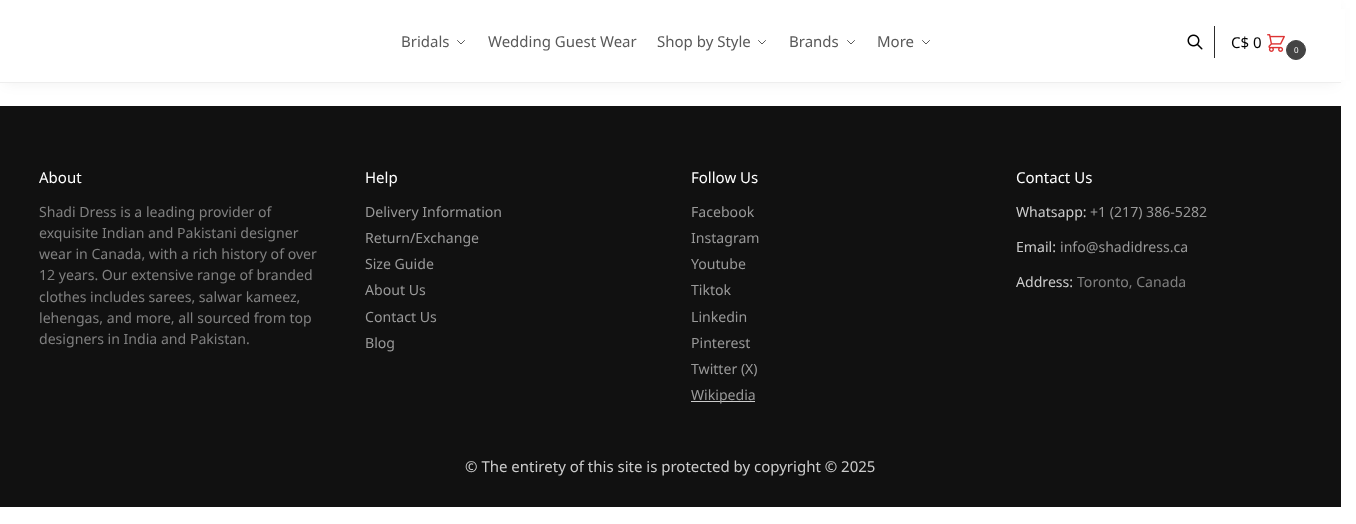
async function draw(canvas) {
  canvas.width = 1356
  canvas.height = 524
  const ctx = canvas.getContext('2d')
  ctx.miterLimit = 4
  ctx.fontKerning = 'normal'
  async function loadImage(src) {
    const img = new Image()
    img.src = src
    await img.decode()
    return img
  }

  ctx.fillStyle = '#fff'
  ctx.fillRect(0, 0, 1356, 524)
  ctx.fillStyle = '#00000014'
  ctx.filter = 'blur(7.5px)'
  ctx.beginPath()
  ctx.rect(5, 8, 1331, 73)
  ctx.fill()
  ctx.filter = 'none'
  ctx.fillStyle = '#fff'
  ctx.fillRect(0, 0, 1341, 82)
  ctx.fillStyle = '#eee'
  ctx.fillRect(0, 82, 1341, 1)
  ctx.font = '15px Noto Sans'
  ctx.fillStyle = '#595959'
  ctx.fillText('Bridals', 401, 47)
  ctx.beginPath()
  ctx.moveTo(464.5, 40.5)
  ctx.lineTo(461, 44)
  ctx.lineTo(457.5, 40.5)
  ctx.strokeStyle = '#595959'
  ctx.lineCap = 'round'
  ctx.lineJoin = 'round'
  ctx.stroke()
  ctx.fillText('Wedding Guest Wear', 488, 47)
  ctx.fillText('Shop by Style', 657, 47)
  ctx.beginPath()
  ctx.moveTo(765.5, 40.5)
  ctx.lineTo(762, 44)
  ctx.lineTo(758.5, 40.5)
  ctx.stroke()
  ctx.fillText('Brands', 789, 47)
  ctx.beginPath()
  ctx.moveTo(854.5, 40.5)
  ctx.lineTo(851, 44)
  ctx.lineTo(847.5, 40.5)
  ctx.stroke()
  ctx.fillText('More', 877, 47)
  ctx.beginPath()
  ctx.moveTo(929.5, 40.5)
  ctx.lineTo(926, 44)
  ctx.lineTo(922.5, 40.5)
  ctx.stroke()
  ctx.drawImage(await loadImage('image0.png'), 1187, 34, 16, 16)
  ctx.fillStyle = '#2c2c2c'
  ctx.fillRect(1214, 26, 1, 32)
  ctx.fillStyle = '#000'
  ctx.fillText('C$ 0', 1231, 48)
  ctx.drawImage(await loadImage('image1.png'), 1267, 34, 18, 18)
  ctx.fillStyle = '#444'
  ctx.beginPath()
  ctx.arc(1296, 50, 9.5, 0, 2 * Math.PI)
  ctx.fill()
  ctx.strokeStyle = '#444'
  ctx.stroke()
  ctx.font = '8px Noto Sans'
  ctx.fillStyle = '#fff'
  ctx.fillText('0', 1294, 53)
  ctx.fillRect(1341, 9, 4, 71)
  ctx.fillStyle = '#111'
  ctx.fillRect(0, 106, 1341, 401)
  ctx.font = '15px Noto Sans'
  ctx.fillStyle = '#fff'
  ctx.fillText('About', 39, 183)
  ctx.font = '14.1px Noto Sans'
  ctx.fillStyle = '#808080'
  ctx.fillText('Shadi Dress is a leading provider of', 39, 217)
  ctx.fillText('exquisite Indian and Pakistani designer', 39, 238)
  ctx.fillText('wear in Canada, with a rich history of over', 39, 259)
  ctx.fillText('12 years. Our extensive range of branded', 39, 280)
  ctx.fillText('clothes includes sarees, salwar kameez,', 39, 302)
  ctx.fillText('lehengas, and more, all sourced from top', 39, 323)
  ctx.fillText('designers in India and Pakistan.', 39, 344)
  ctx.font = '15px Noto Sans'
  ctx.fillStyle = '#fff'
  ctx.fillText('Help', 365, 183)
  ctx.font = '14.1px Noto Sans'
  ctx.fillStyle = '#999'
  ctx.fillText('Delivery Information', 365, 217)
  ctx.fillText('Return/Exchange', 365, 243)
  ctx.fillText('Size Guide', 365, 269)
  ctx.fillText('About Us', 365, 295)
  ctx.fillText('Contact Us', 365, 322)
  ctx.fillText('Blog', 365, 348)
  ctx.font = '15px Noto Sans'
  ctx.fillStyle = '#fff'
  ctx.fillText('Follow Us', 691, 183)
  ctx.font = '14.1px Noto Sans'
  ctx.fillStyle = '#999'
  ctx.fillText('Facebook', 691, 217)
  ctx.fillText('Instagram', 691, 243)
  ctx.fillText('Youtube', 691, 269)
  ctx.fillText('Tiktok', 691, 295)
  ctx.fillText('Linkedin', 691, 322)
  ctx.fillText('Pinterest', 691, 348)
  ctx.fillText('Twitter (X)', 691, 374)
  ctx.fillStyle = '#ccc'
  ctx.fillRect(691, 401, 64, 1)
  ctx.fillStyle = '#999'
  ctx.fillText('Wikipedia', 691, 400)
  ctx.font = '15px Noto Sans'
  ctx.fillStyle = '#fff'
  ctx.fillText('Contact Us', 1016, 183)
  ctx.font = '14.1px Noto Sans'
  ctx.fillStyle = '#ccc'
  ctx.fillText('Whatsapp:', 1016, 217)
  ctx.fillStyle = '#999'
  ctx.fillText('+1 (217) 386-5282', 1090, 217)
  ctx.fillStyle = '#ccc'
  ctx.fillText('Email:', 1016, 252)
  ctx.fillStyle = '#999'
  ctx.fillText('info@shadidress.ca', 1060, 252)
  ctx.fillStyle = '#ccc'
  ctx.fillText('Address:', 1016, 287)
  ctx.fillStyle = '#808080'
  ctx.fillText('Toronto, Canada', 1077, 287)
  ctx.font = '15px Noto Sans'
  ctx.fillStyle = '#ccc'
  ctx.fillText('© The entirety of this site is protected by copyright © 2025', 465, 472)
}

draw(document.querySelector('canvas'))
